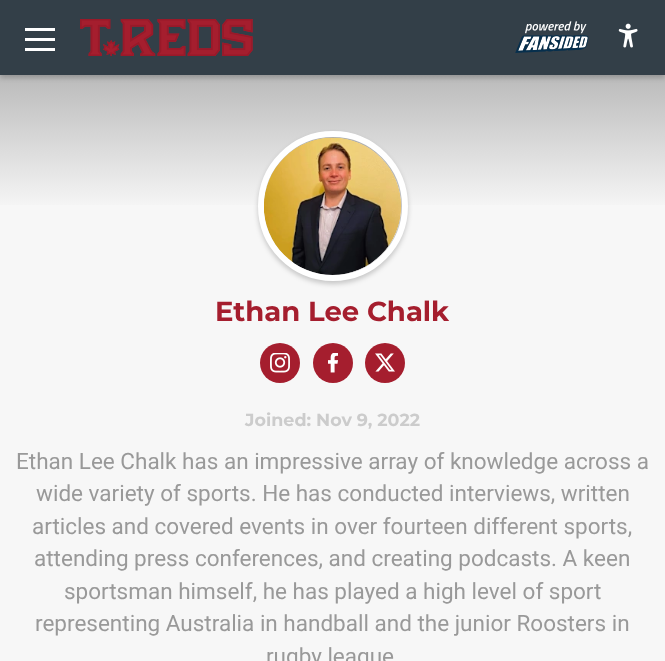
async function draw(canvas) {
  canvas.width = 665
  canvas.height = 661
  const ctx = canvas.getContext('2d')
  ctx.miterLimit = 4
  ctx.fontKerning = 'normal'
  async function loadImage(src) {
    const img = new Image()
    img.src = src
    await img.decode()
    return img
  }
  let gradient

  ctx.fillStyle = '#f7f7f7'
  ctx.fillRect(0, 0, 665, 661)
  gradient = ctx.createLinearGradient(333, 213, 333, 0)
  gradient.addColorStop(0, '#f8f8f8')
  gradient.addColorStop(1, '#999')
  ctx.fillStyle = gradient
  ctx.fillRect(0, 75, 665, 130)
  ctx.fillStyle = '#00000033'
  ctx.filter = 'blur(2.5px)'
  ctx.beginPath()
  ctx.rect(0, 3, 665, 75)
  ctx.fill()
  ctx.filter = 'none'
  ctx.fillStyle = '#333f48'
  ctx.fillRect(0, 0, 665, 75)
  ctx.fillStyle = '#fff'
  ctx.fillRect(25, 28, 30, 3)
  ctx.fillRect(25, 38, 30, 3)
  ctx.fillRect(25, 48, 30, 3)
  ctx.drawImage(await loadImage('image0.png'), 80, 19, 173, 37)
  ctx.drawImage(await loadImage('image1.png'), 515, 21, 74, 32)
  ctx.drawImage(await loadImage('image2.png'), 618, 23, 20, 25)
  ctx.fillStyle = '#00000033'
  ctx.filter = 'blur(2.5px)'
  ctx.beginPath()
  ctx.roundRect(258, 134, 150, 150, 75)
  ctx.fill()
  ctx.filter = 'none'
  ctx.beginPath()
  ctx.arc(333, 206, 72, 0, 2 * Math.PI)
  ctx.strokeStyle = '#fff'
  ctx.lineWidth = 6
  ctx.stroke()
  ctx.fillStyle = '#f7f7f7'
  ctx.beginPath()
  ctx.arc(332.5, 206.5, 68.5, 0, 2 * Math.PI)
  ctx.fill()
  ctx.drawImage(await loadImage('image3.png'), 264, 137, 137, 138)
  ctx.font = 'bold 27.5px Montserrat'
  ctx.fillStyle = '#a51e2e'
  ctx.fillText('Ethan Lee Chalk', 215, 321)
  ctx.beginPath()
  ctx.arc(280, 363, 20, 0, 2 * Math.PI)
  ctx.fill()
  ctx.drawImage(await loadImage('image4.png'), 270, 353, 20, 20)
  ctx.beginPath()
  ctx.arc(333, 363, 20, 0, 2 * Math.PI)
  ctx.fill()
  ctx.drawImage(await loadImage('image5.png'), 328, 353, 10, 20)
  ctx.beginPath()
  ctx.arc(385, 363, 20, 0, 2 * Math.PI)
  ctx.fill()
  ctx.drawImage(await loadImage('image6.png'), 375, 353, 20, 19)
  ctx.font = 'bold 17.5px Montserrat'
  ctx.fillStyle = '#ccc'
  ctx.fillText('Joined: Nov 9, 2022', 245, 426)
  ctx.font = '22.5px Roboto'
  ctx.fillStyle = '#999'
  ctx.fillText('Ethan Lee Chalk has an impressive array of knowledge across a', 16, 469)
  ctx.fillText('wide variety of sports. He has conducted interviews, written', 36, 501)
  ctx.fillText('articles and covered events in over fourteen different sports,', 32, 534)
  ctx.fillText('attending press conferences, and creating podcasts. A keen', 34, 566)
  ctx.fillText('sportsman himself, he has played a high level of sport', 64, 599)
  ctx.fillText('representing Australia in handball and the junior Roosters in', 35, 631)
  ctx.fillText('rugby league', 266, 664)
}

draw(document.querySelector('canvas'))
